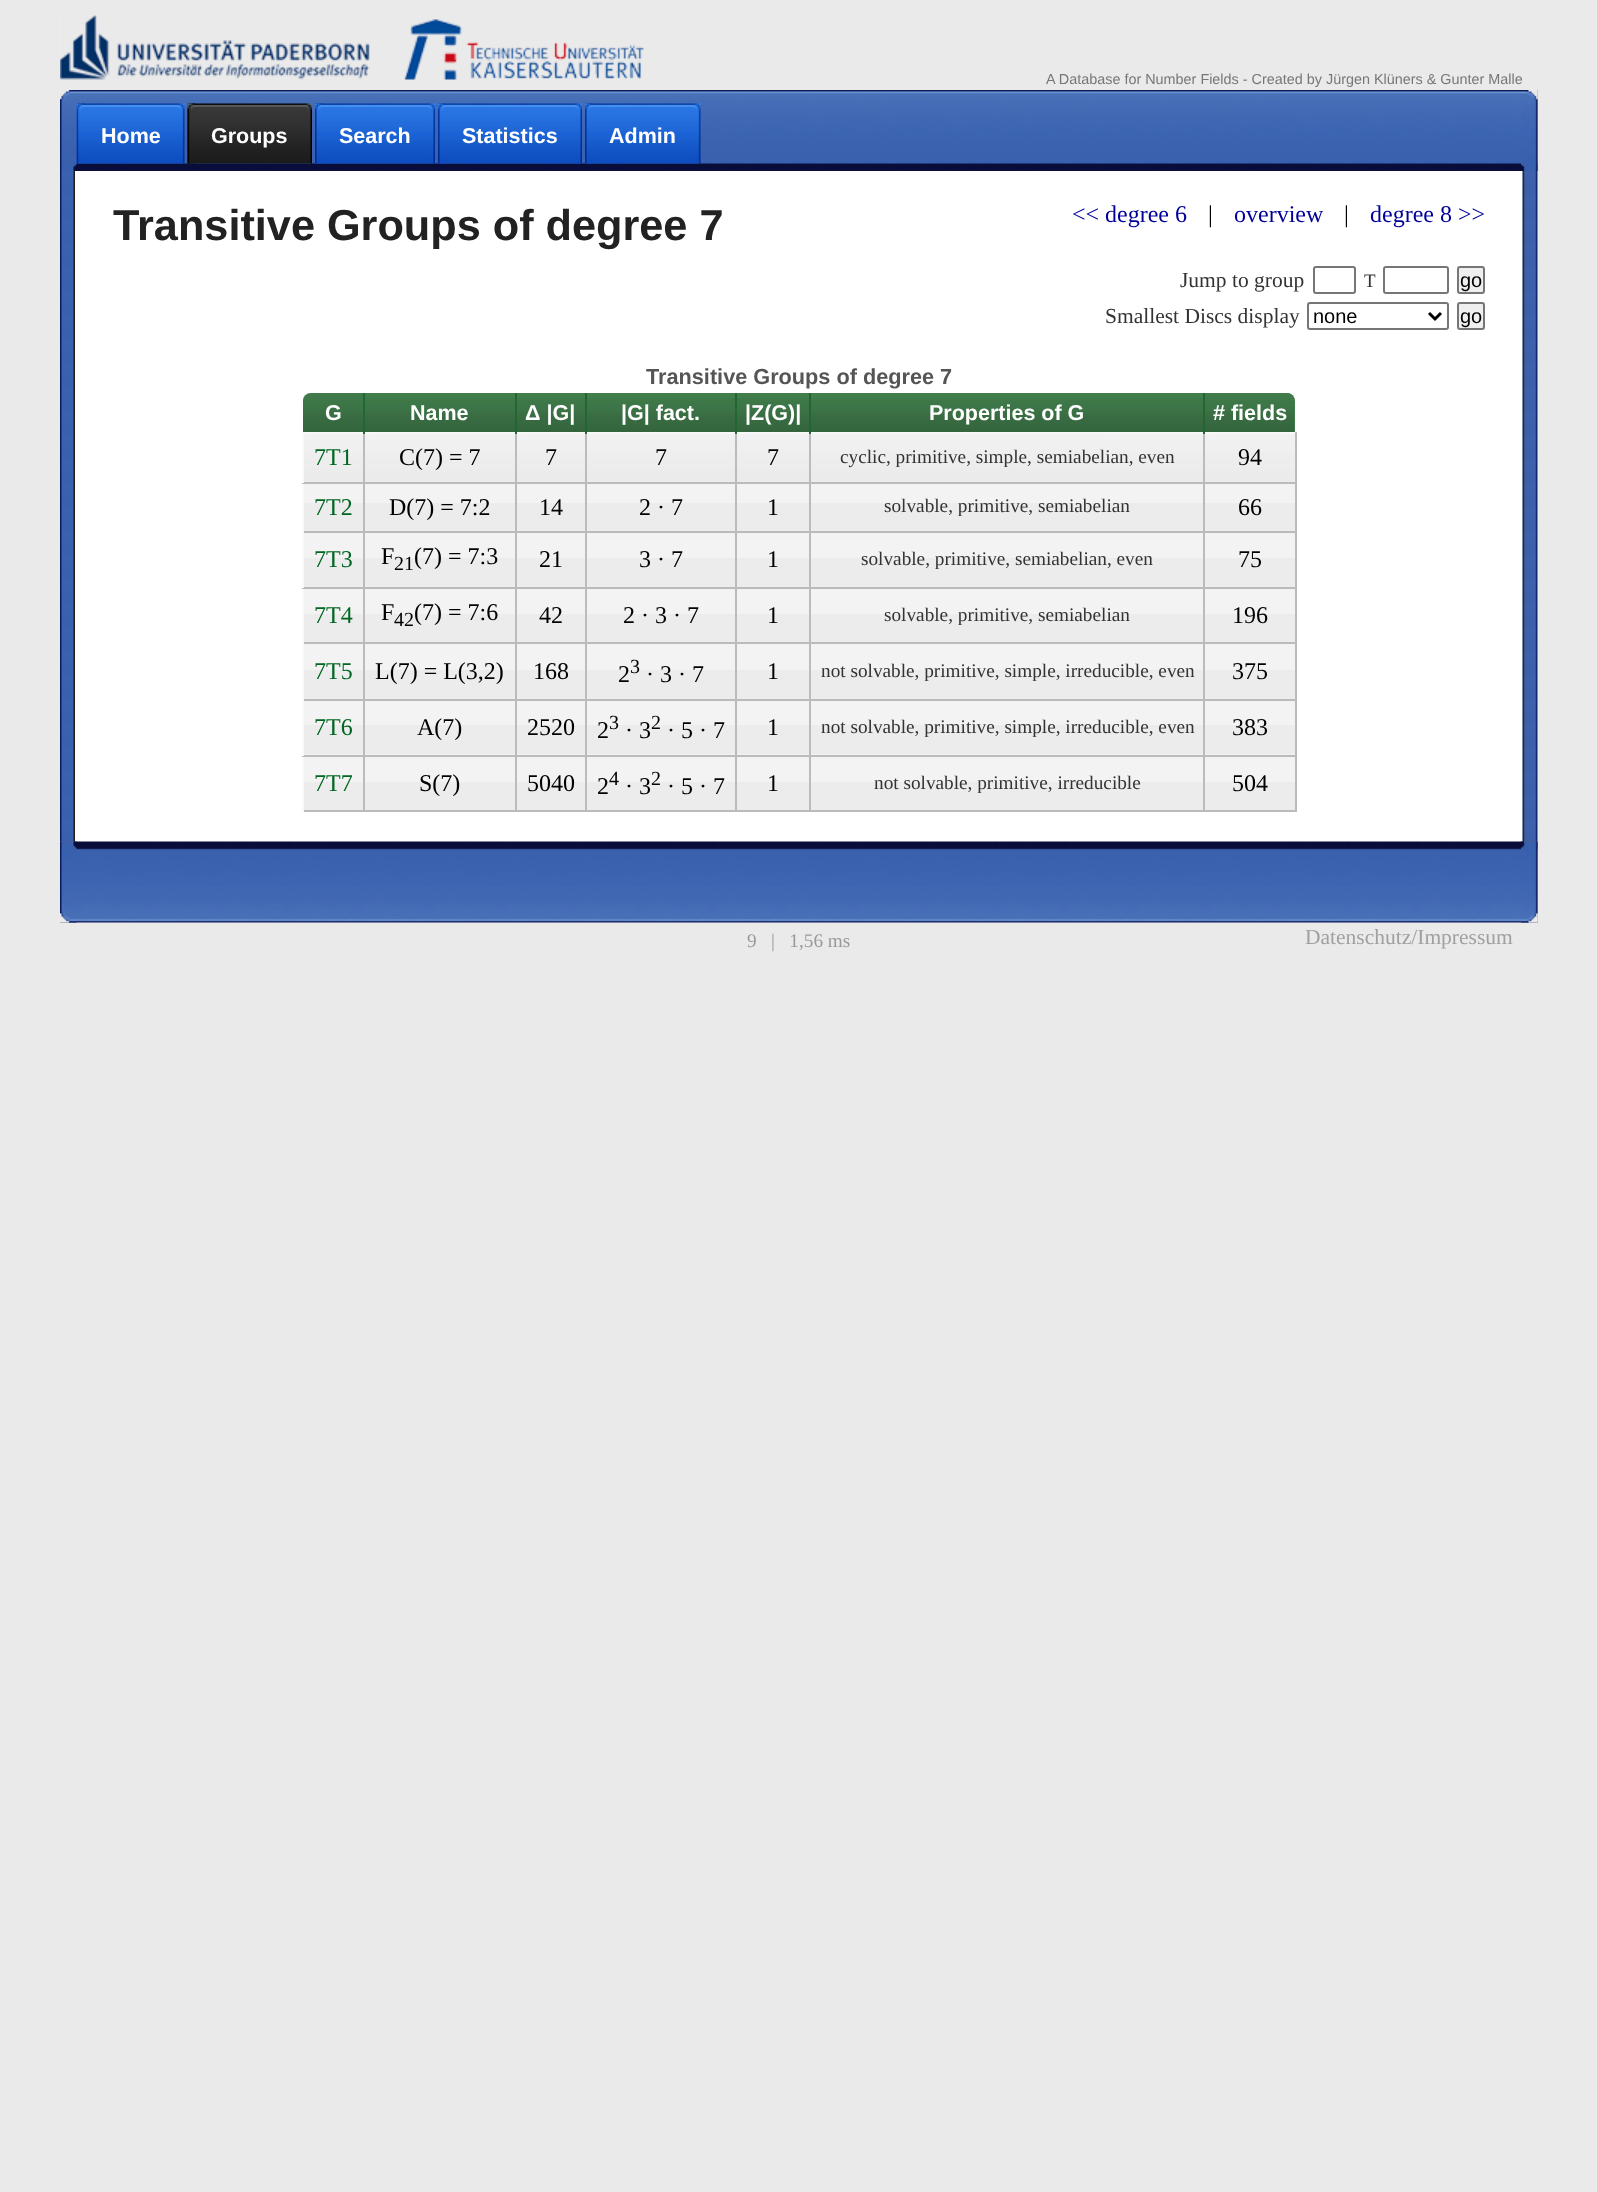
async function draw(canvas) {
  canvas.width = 1597
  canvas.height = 2192
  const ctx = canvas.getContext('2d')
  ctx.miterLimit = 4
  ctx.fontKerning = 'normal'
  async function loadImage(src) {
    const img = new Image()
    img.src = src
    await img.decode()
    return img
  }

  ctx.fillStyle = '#eaeaea'
  ctx.fillRect(0, 0, 1597, 2192)
  ctx.drawImage(await loadImage('image0.png'), 60, 15, 584, 65)
  ctx.font = '14.4px Liberation Sans'
  ctx.fillStyle = '#777'
  ctx.fillText('A Database for Number Fields - Created by Jürgen Klüners & Gunter Malle', 1046, 84)
  ctx.drawImage(await loadImage('image1.png'), 76, 90, 1462, 81)
  ctx.drawImage(await loadImage('image2.png'), 60, 90, 17, 81)
  ctx.drawImage(await loadImage('image3.png'), 76, 103, 109, 61)
  ctx.drawImage(await loadImage('image4.png'), 76, 103, 8, 61)
  ctx.font = 'bold 21.5px Liberation Sans'
  ctx.fillStyle = '#fff'
  ctx.fillText('Home', 101, 143)
  ctx.drawImage(await loadImage('image5.png'), 187, 103, 125, 61)
  ctx.drawImage(await loadImage('image6.png'), 187, 103, 8, 61)
  ctx.fillText('Groups', 211, 143)
  ctx.drawImage(await loadImage('image7.png'), 315, 103, 120, 61)
  ctx.drawImage(await loadImage('image8.png'), 315, 103, 8, 61)
  ctx.fillText('Search', 339, 143)
  ctx.drawImage(await loadImage('image9.png'), 438, 103, 144, 61)
  ctx.drawImage(await loadImage('image10.png'), 438, 103, 8, 61)
  ctx.fillText('Statistics', 462, 143)
  ctx.drawImage(await loadImage('image11.png'), 585, 103, 116, 61)
  ctx.drawImage(await loadImage('image12.png'), 585, 103, 8, 61)
  ctx.fillText('Admin', 609, 143)
  ctx.drawImage(await loadImage('image13.png'), 1521, 90, 17, 81)
  ctx.fillRect(60, 171, 1478, 671)
  ctx.drawImage(await loadImage('image14.png'), 60, 171, 15, 671)
  ctx.drawImage(await loadImage('image15.png'), 1522, 171, 16, 671)
  ctx.font = 'bold 43.25px Liberation Sans'
  ctx.fillStyle = '#222'
  ctx.fillText('Transitive Groups of degree 7', 113, 240)
  ctx.font = '24px Liberation Serif'
  ctx.fillStyle = '#009'
  ctx.fillText('<< degree 6', 1072, 222)
  ctx.fillStyle = '#000'
  ctx.fillText('|', 1208, 222)
  ctx.fillStyle = '#009'
  ctx.fillText('overview', 1234, 222)
  ctx.fillStyle = '#000'
  ctx.fillText('|', 1344, 222)
  ctx.fillStyle = '#009'
  ctx.fillText('degree 8 >>', 1370, 222)
  ctx.font = '21.5px Liberation Serif'
  ctx.fillStyle = '#333'
  ctx.fillText('Jump to group', 1180, 287)
  ctx.beginPath()
  ctx.roundRect(1314, 267, 41, 26, 2)
  ctx.strokeStyle = '#767676'
  ctx.lineWidth = 2
  ctx.stroke()
  ctx.font = '19px Liberation Serif'
  ctx.fillText('T', 1364, 287)
  ctx.beginPath()
  ctx.roundRect(1384, 267, 64, 26, 2)
  ctx.stroke()
  ctx.fillStyle = '#efefef'
  ctx.beginPath()
  ctx.roundRect(1458, 267, 26, 26, 2)
  ctx.fill()
  ctx.stroke()
  ctx.font = '20px Liberation Sans'
  ctx.fillStyle = '#000'
  ctx.fillText('go', 1460, 287)
  ctx.font = '21.5px Liberation Serif'
  ctx.fillStyle = '#333'
  ctx.fillText('Smallest Discs display', 1105, 323)
  ctx.beginPath()
  ctx.roundRect(1308, 303, 140, 26, 2)
  ctx.stroke()
  ctx.beginPath()
  ctx.moveTo(1429, 313)
  ctx.lineTo(1435, 319)
  ctx.lineTo(1441, 313)
  ctx.strokeStyle = '#000'
  ctx.lineWidth = 3
  ctx.stroke()
  ctx.font = '20px Liberation Sans'
  ctx.fillStyle = '#000'
  ctx.fillText('none', 1313, 323)
  ctx.fillStyle = '#efefef'
  ctx.beginPath()
  ctx.roundRect(1458, 303, 26, 26, 2)
  ctx.fill()
  ctx.strokeStyle = '#767676'
  ctx.lineWidth = 2
  ctx.stroke()
  ctx.fillStyle = '#000'
  ctx.fillText('go', 1460, 323)
  ctx.font = 'bold 21.7px Liberation Sans'
  ctx.fillStyle = '#555'
  ctx.fillText('Transitive Groups of degree 7', 646, 384)
  ctx.drawImage(await loadImage('image16.png'), 303, 393, 60, 39)
  ctx.fillStyle = '#427e4c'
  ctx.beginPath()
  ctx.roundRect(1205, 393, 90, 41, [0, 8, 0, 0])
  ctx.fill()
  ctx.fillStyle = '#f9f9f9'
  ctx.fillRect(302, 432, 994, 2)
  ctx.fillStyle = '#bbb'
  ctx.fillRect(1295, 482, 2, 330)
  ctx.fillRect(1295, 432, 2, 51)
  ctx.fillRect(1203, 810, 93, 2)
  ctx.fillRect(1203, 755, 2, 57)
  ctx.fillRect(1203, 755, 93, 2)
  ctx.fillRect(1203, 699, 2, 57)
  ctx.fillRect(1203, 699, 93, 2)
  ctx.fillRect(1203, 642, 2, 59)
  ctx.fillRect(1203, 642, 93, 2)
  ctx.fillRect(1203, 587, 2, 57)
  ctx.fillRect(1203, 587, 93, 2)
  ctx.fillRect(1203, 531, 2, 57)
  ctx.fillRect(1203, 531, 93, 2)
  ctx.fillRect(1203, 482, 2, 51)
  ctx.fillRect(1203, 482, 93, 2)
  ctx.fillRect(1203, 432, 2, 51)
  ctx.fillRect(809, 810, 396, 2)
  ctx.fillRect(809, 755, 2, 57)
  ctx.fillRect(809, 755, 396, 2)
  ctx.fillRect(809, 699, 2, 57)
  ctx.fillRect(809, 699, 396, 2)
  ctx.fillRect(809, 642, 2, 59)
  ctx.fillRect(809, 642, 396, 2)
  ctx.fillRect(809, 587, 2, 57)
  ctx.fillRect(809, 587, 396, 2)
  ctx.fillRect(809, 531, 2, 57)
  ctx.fillRect(809, 531, 396, 2)
  ctx.fillRect(809, 482, 2, 51)
  ctx.fillRect(809, 482, 396, 2)
  ctx.fillRect(809, 432, 2, 51)
  ctx.fillRect(735, 810, 75, 2)
  ctx.fillRect(735, 755, 2, 57)
  ctx.fillRect(735, 755, 75, 2)
  ctx.fillRect(735, 699, 2, 57)
  ctx.fillRect(735, 699, 75, 2)
  ctx.fillRect(735, 642, 2, 59)
  ctx.fillRect(735, 642, 75, 2)
  ctx.fillRect(735, 587, 2, 57)
  ctx.fillRect(735, 587, 75, 2)
  ctx.fillRect(735, 531, 2, 57)
  ctx.fillRect(735, 531, 75, 2)
  ctx.fillRect(735, 482, 2, 51)
  ctx.fillRect(735, 482, 75, 2)
  ctx.fillRect(735, 432, 2, 51)
  ctx.fillRect(585, 810, 152, 2)
  ctx.fillRect(585, 755, 2, 57)
  ctx.fillRect(585, 755, 152, 2)
  ctx.fillRect(585, 699, 2, 57)
  ctx.fillRect(585, 699, 152, 2)
  ctx.fillRect(585, 642, 2, 59)
  ctx.fillRect(585, 642, 152, 2)
  ctx.fillRect(585, 587, 2, 57)
  ctx.fillRect(585, 587, 152, 2)
  ctx.fillRect(585, 531, 2, 57)
  ctx.fillRect(585, 531, 152, 2)
  ctx.fillRect(585, 482, 2, 51)
  ctx.fillRect(585, 482, 152, 2)
  ctx.fillRect(585, 432, 2, 51)
  ctx.fillRect(515, 810, 72, 2)
  ctx.fillRect(515, 755, 2, 57)
  ctx.fillRect(515, 755, 72, 2)
  ctx.fillRect(515, 699, 2, 57)
  ctx.fillRect(515, 699, 72, 2)
  ctx.fillRect(515, 642, 2, 59)
  ctx.fillRect(515, 642, 72, 2)
  ctx.fillRect(515, 587, 2, 57)
  ctx.fillRect(515, 587, 72, 2)
  ctx.fillRect(515, 531, 2, 57)
  ctx.fillRect(515, 531, 72, 2)
  ctx.fillRect(515, 482, 2, 51)
  ctx.fillRect(515, 482, 72, 2)
  ctx.fillRect(515, 432, 2, 51)
  ctx.fillRect(363, 810, 153, 2)
  ctx.fillRect(363, 755, 2, 57)
  ctx.fillRect(363, 755, 153, 2)
  ctx.fillRect(363, 699, 2, 57)
  ctx.fillRect(363, 699, 153, 2)
  ctx.fillRect(363, 642, 2, 59)
  ctx.fillRect(363, 642, 153, 2)
  ctx.fillRect(363, 587, 2, 57)
  ctx.fillRect(363, 587, 153, 2)
  ctx.fillRect(363, 531, 2, 57)
  ctx.fillRect(363, 531, 153, 2)
  ctx.fillRect(363, 482, 2, 51)
  ctx.fillRect(363, 482, 153, 2)
  ctx.fillRect(363, 432, 2, 51)
  ctx.fillStyle = '#263'
  ctx.fillRect(363, 393, 2, 41)
  ctx.font = 'bold 21.5px Liberation Sans'
  ctx.fillStyle = '#fff'
  ctx.fillText('G', 325, 420)
  ctx.fillStyle = '#427e4c'
  ctx.fillRect(365, 393, 150, 5)
  ctx.drawImage(await loadImage('image17.png'), 365, 398, 150, 34)
  ctx.fillStyle = '#263'
  ctx.fillRect(515, 393, 2, 41)
  ctx.fillStyle = '#fff'
  ctx.fillText('Name', 410, 420)
  ctx.fillStyle = '#427e4c'
  ctx.fillRect(517, 393, 68, 5)
  ctx.drawImage(await loadImage('image18.png'), 517, 398, 68, 34)
  ctx.fillStyle = '#263'
  ctx.fillRect(585, 393, 2, 41)
  ctx.fillStyle = '#fff'
  ctx.fillText('Δ |G|', 525, 420)
  ctx.fillStyle = '#427e4c'
  ctx.fillRect(587, 393, 148, 5)
  ctx.drawImage(await loadImage('image19.png'), 587, 398, 148, 34)
  ctx.fillStyle = '#263'
  ctx.fillRect(735, 393, 2, 41)
  ctx.fillStyle = '#fff'
  ctx.fillText('|G| fact.', 621, 420)
  ctx.fillStyle = '#427e4c'
  ctx.fillRect(737, 393, 72, 5)
  ctx.drawImage(await loadImage('image20.png'), 737, 398, 72, 34)
  ctx.fillStyle = '#263'
  ctx.fillRect(809, 393, 2, 41)
  ctx.fillStyle = '#fff'
  ctx.fillText('|Z(G)|', 745, 420)
  ctx.fillStyle = '#427e4c'
  ctx.fillRect(811, 393, 392, 5)
  ctx.drawImage(await loadImage('image21.png'), 811, 398, 392, 34)
  ctx.fillStyle = '#263'
  ctx.fillRect(1203, 393, 2, 41)
  ctx.fillStyle = '#fff'
  ctx.fillText('Properties of G', 929, 420)
  ctx.drawImage(await loadImage('image22.png'), 1205, 393, 90, 39)
  ctx.fillText('# fields', 1213, 420)
  ctx.drawImage(await loadImage('image23.png'), 304, 434, 59, 48)
  ctx.fillStyle = '#bbb'
  ctx.fillRect(302, 810, 63, 2)
  ctx.fillStyle = '#f9f9f9'
  ctx.fillRect(302, 755, 2, 57)
  ctx.fillStyle = '#bbb'
  ctx.fillRect(302, 755, 63, 2)
  ctx.fillStyle = '#f9f9f9'
  ctx.fillRect(302, 699, 2, 57)
  ctx.fillStyle = '#bbb'
  ctx.fillRect(302, 699, 63, 2)
  ctx.fillStyle = '#f9f9f9'
  ctx.fillRect(302, 642, 2, 59)
  ctx.fillStyle = '#bbb'
  ctx.fillRect(302, 642, 63, 2)
  ctx.fillStyle = '#f9f9f9'
  ctx.fillRect(302, 587, 2, 57)
  ctx.fillStyle = '#bbb'
  ctx.fillRect(302, 587, 63, 2)
  ctx.fillStyle = '#f9f9f9'
  ctx.fillRect(302, 531, 2, 57)
  ctx.fillStyle = '#bbb'
  ctx.fillRect(302, 531, 63, 2)
  ctx.fillStyle = '#f9f9f9'
  ctx.fillRect(302, 482, 2, 51)
  ctx.fillStyle = '#bbb'
  ctx.fillRect(302, 482, 63, 2)
  ctx.fillStyle = '#f9f9f9'
  ctx.fillRect(302, 432, 2, 51)
  ctx.font = '24px Liberation Serif'
  ctx.fillStyle = '#062'
  ctx.fillText('7T1', 314, 465)
  ctx.drawImage(await loadImage('image24.png'), 365, 434, 150, 48)
  ctx.fillStyle = '#000'
  ctx.fillText('C(7) = 7', 399, 465)
  ctx.drawImage(await loadImage('image25.png'), 517, 434, 68, 48)
  ctx.fillText('7', 545, 465)
  ctx.drawImage(await loadImage('image26.png'), 587, 434, 148, 48)
  ctx.fillText('7', 655, 465)
  ctx.drawImage(await loadImage('image27.png'), 737, 434, 72, 48)
  ctx.fillText('7', 767, 465)
  ctx.drawImage(await loadImage('image28.png'), 811, 434, 392, 48)
  ctx.font = '19.25px Liberation Serif'
  ctx.fillStyle = '#333'
  ctx.fillText('cyclic, primitive, simple, semiabelian, even', 840, 463)
  ctx.fillStyle = '#f3f3f3'
  ctx.fillRect(1294, 434, 1, 48)
  ctx.drawImage(await loadImage('image29.png'), 1205, 434, 90, 48)
  ctx.font = '24px Liberation Serif'
  ctx.fillStyle = '#000'
  ctx.fillText('94', 1238, 465)
  ctx.fillStyle = '#f3f3f3'
  ctx.fillRect(304, 484, 59, 19)
  ctx.fillStyle = '#ececec'
  ctx.fillRect(304, 503, 59, 28)
  ctx.fillStyle = '#062'
  ctx.fillText('7T2', 314, 515)
  ctx.fillStyle = '#f3f3f3'
  ctx.fillRect(365, 484, 150, 19)
  ctx.fillStyle = '#ececec'
  ctx.fillRect(365, 503, 150, 28)
  ctx.fillStyle = '#000'
  ctx.fillText('D(7) = 7:2', 389, 515)
  ctx.fillStyle = '#f3f3f3'
  ctx.fillRect(517, 484, 68, 19)
  ctx.fillStyle = '#ececec'
  ctx.fillRect(517, 503, 68, 28)
  ctx.fillStyle = '#000'
  ctx.fillText('14', 539, 515)
  ctx.fillStyle = '#f3f3f3'
  ctx.fillRect(587, 484, 148, 19)
  ctx.fillStyle = '#ececec'
  ctx.fillRect(587, 503, 148, 28)
  ctx.fillStyle = '#000'
  ctx.fillText('2 · 7', 639, 515)
  ctx.fillStyle = '#f3f3f3'
  ctx.fillRect(737, 484, 72, 19)
  ctx.fillStyle = '#ececec'
  ctx.fillRect(737, 503, 72, 28)
  ctx.fillStyle = '#000'
  ctx.fillText('1', 767, 515)
  ctx.fillStyle = '#f3f3f3'
  ctx.fillRect(811, 484, 392, 19)
  ctx.fillStyle = '#ececec'
  ctx.fillRect(811, 503, 392, 28)
  ctx.font = '19.25px Liberation Serif'
  ctx.fillStyle = '#333'
  ctx.fillText('solvable, primitive, semiabelian', 884, 512)
  ctx.fillStyle = '#f3f3f3'
  ctx.fillRect(1205, 484, 90, 19)
  ctx.fillStyle = '#ececec'
  ctx.fillRect(1205, 503, 90, 28)
  ctx.font = '24px Liberation Serif'
  ctx.fillStyle = '#000'
  ctx.fillText('66', 1238, 515)
  ctx.fillStyle = '#f3f3f3'
  ctx.fillRect(304, 533, 59, 25)
  ctx.fillStyle = '#ececec'
  ctx.fillRect(304, 558, 59, 29)
  ctx.fillStyle = '#062'
  ctx.fillText('7T3', 314, 567)
  ctx.fillStyle = '#f3f3f3'
  ctx.fillRect(365, 533, 150, 25)
  ctx.fillStyle = '#ececec'
  ctx.fillRect(365, 558, 150, 29)
  ctx.fillStyle = '#000'
  ctx.fillText('F', 381, 564)
  ctx.font = '20px Liberation Serif'
  ctx.fillText('21', 394, 570)
  ctx.font = '24px Liberation Serif'
  ctx.fillText('(7) = 7:3', 414, 564)
  ctx.fillStyle = '#f3f3f3'
  ctx.fillRect(517, 533, 68, 25)
  ctx.fillStyle = '#ececec'
  ctx.fillRect(517, 558, 68, 29)
  ctx.fillStyle = '#000'
  ctx.fillText('21', 539, 567)
  ctx.fillStyle = '#f3f3f3'
  ctx.fillRect(587, 533, 148, 25)
  ctx.fillStyle = '#ececec'
  ctx.fillRect(587, 558, 148, 29)
  ctx.fillStyle = '#000'
  ctx.fillText('3 · 7', 639, 567)
  ctx.fillStyle = '#f3f3f3'
  ctx.fillRect(737, 533, 72, 25)
  ctx.fillStyle = '#ececec'
  ctx.fillRect(737, 558, 72, 29)
  ctx.fillStyle = '#000'
  ctx.fillText('1', 767, 567)
  ctx.fillStyle = '#f3f3f3'
  ctx.fillRect(811, 533, 392, 25)
  ctx.fillStyle = '#ececec'
  ctx.fillRect(811, 558, 392, 29)
  ctx.font = '19.25px Liberation Serif'
  ctx.fillStyle = '#333'
  ctx.fillText('solvable, primitive, semiabelian, even', 861, 565)
  ctx.fillStyle = '#f3f3f3'
  ctx.fillRect(1205, 533, 90, 25)
  ctx.fillStyle = '#ececec'
  ctx.fillRect(1205, 558, 90, 29)
  ctx.font = '24px Liberation Serif'
  ctx.fillStyle = '#000'
  ctx.fillText('75', 1238, 567)
  ctx.fillStyle = '#f3f3f3'
  ctx.fillRect(304, 589, 59, 25)
  ctx.fillStyle = '#ececec'
  ctx.fillRect(304, 614, 59, 28)
  ctx.fillStyle = '#062'
  ctx.fillText('7T4', 314, 623)
  ctx.fillStyle = '#f3f3f3'
  ctx.fillRect(365, 589, 150, 25)
  ctx.fillStyle = '#ececec'
  ctx.fillRect(365, 614, 150, 28)
  ctx.fillStyle = '#000'
  ctx.fillText('F', 381, 620)
  ctx.font = '20px Liberation Serif'
  ctx.fillText('42', 394, 626)
  ctx.font = '24px Liberation Serif'
  ctx.fillText('(7) = 7:6', 414, 620)
  ctx.fillStyle = '#f3f3f3'
  ctx.fillRect(517, 589, 68, 25)
  ctx.fillStyle = '#ececec'
  ctx.fillRect(517, 614, 68, 28)
  ctx.fillStyle = '#000'
  ctx.fillText('42', 539, 623)
  ctx.fillStyle = '#f3f3f3'
  ctx.fillRect(587, 589, 148, 25)
  ctx.fillStyle = '#ececec'
  ctx.fillRect(587, 614, 148, 28)
  ctx.fillStyle = '#000'
  ctx.fillText('2 · 3 · 7', 623, 623)
  ctx.fillStyle = '#f3f3f3'
  ctx.fillRect(737, 589, 72, 25)
  ctx.fillStyle = '#ececec'
  ctx.fillRect(737, 614, 72, 28)
  ctx.fillStyle = '#000'
  ctx.fillText('1', 767, 623)
  ctx.fillStyle = '#f3f3f3'
  ctx.fillRect(811, 589, 392, 25)
  ctx.fillStyle = '#ececec'
  ctx.fillRect(811, 614, 392, 28)
  ctx.font = '19.25px Liberation Serif'
  ctx.fillStyle = '#333'
  ctx.fillText('solvable, primitive, semiabelian', 884, 621)
  ctx.fillStyle = '#f3f3f3'
  ctx.fillRect(1205, 589, 90, 25)
  ctx.fillStyle = '#ececec'
  ctx.fillRect(1205, 614, 90, 28)
  ctx.font = '24px Liberation Serif'
  ctx.fillStyle = '#000'
  ctx.fillText('196', 1232, 623)
  ctx.fillStyle = '#f3f3f3'
  ctx.fillRect(304, 644, 59, 26)
  ctx.fillStyle = '#ececec'
  ctx.fillRect(304, 670, 59, 29)
  ctx.fillStyle = '#062'
  ctx.fillText('7T5', 314, 679)
  ctx.fillStyle = '#f3f3f3'
  ctx.fillRect(365, 644, 150, 26)
  ctx.fillStyle = '#ececec'
  ctx.fillRect(365, 670, 150, 29)
  ctx.fillStyle = '#000'
  ctx.fillText('L(7) = L(3,2)', 375, 679)
  ctx.fillStyle = '#f3f3f3'
  ctx.fillRect(517, 644, 68, 26)
  ctx.fillStyle = '#ececec'
  ctx.fillRect(517, 670, 68, 29)
  ctx.fillStyle = '#000'
  ctx.fillText('168', 533, 679)
  ctx.fillStyle = '#f3f3f3'
  ctx.fillRect(587, 644, 148, 26)
  ctx.fillStyle = '#ececec'
  ctx.fillRect(587, 670, 148, 29)
  ctx.fillStyle = '#000'
  ctx.fillText('2', 618, 682)
  ctx.font = '20px Liberation Serif'
  ctx.fillText('3', 630, 673)
  ctx.font = '24px Liberation Serif'
  ctx.fillText('· 3 · 7', 646, 682)
  ctx.fillStyle = '#f3f3f3'
  ctx.fillRect(737, 644, 72, 26)
  ctx.fillStyle = '#ececec'
  ctx.fillRect(737, 670, 72, 29)
  ctx.fillStyle = '#000'
  ctx.fillText('1', 767, 679)
  ctx.fillStyle = '#f3f3f3'
  ctx.fillRect(811, 644, 392, 26)
  ctx.fillStyle = '#ececec'
  ctx.fillRect(811, 670, 392, 29)
  ctx.font = '19.25px Liberation Serif'
  ctx.fillStyle = '#333'
  ctx.fillText('not solvable, primitive, simple, irreducible, even', 821, 677)
  ctx.fillStyle = '#f3f3f3'
  ctx.fillRect(1205, 644, 90, 26)
  ctx.fillStyle = '#ececec'
  ctx.fillRect(1205, 670, 90, 29)
  ctx.font = '24px Liberation Serif'
  ctx.fillStyle = '#000'
  ctx.fillText('375', 1232, 679)
  ctx.fillStyle = '#f3f3f3'
  ctx.fillRect(304, 701, 59, 54)
  ctx.fillStyle = '#ececec'
  ctx.fillRect(304, 725, 59, 29)
  ctx.fillStyle = '#062'
  ctx.fillText('7T6', 314, 735)
  ctx.fillStyle = '#f3f3f3'
  ctx.fillRect(365, 701, 150, 54)
  ctx.fillStyle = '#ececec'
  ctx.fillRect(365, 725, 150, 29)
  ctx.fillStyle = '#000'
  ctx.fillText('A(7)', 417, 735)
  ctx.fillStyle = '#f3f3f3'
  ctx.fillRect(517, 701, 68, 54)
  ctx.fillStyle = '#ececec'
  ctx.fillRect(517, 725, 68, 29)
  ctx.fillStyle = '#000'
  ctx.fillText('2520', 527, 735)
  ctx.fillStyle = '#f3f3f3'
  ctx.fillRect(587, 701, 148, 54)
  ctx.fillStyle = '#ececec'
  ctx.fillRect(587, 725, 148, 29)
  ctx.fillStyle = '#000'
  ctx.fillText('2', 597, 738)
  ctx.font = '20px Liberation Serif'
  ctx.fillText('3', 609, 729)
  ctx.font = '24px Liberation Serif'
  ctx.fillText('· 3', 625, 738)
  ctx.font = '20px Liberation Serif'
  ctx.fillText('2', 651, 729)
  ctx.font = '24px Liberation Serif'
  ctx.fillText('· 5 · 7', 667, 738)
  ctx.fillStyle = '#f3f3f3'
  ctx.fillRect(737, 701, 72, 54)
  ctx.fillStyle = '#ececec'
  ctx.fillRect(737, 725, 72, 29)
  ctx.fillStyle = '#000'
  ctx.fillText('1', 767, 735)
  ctx.fillStyle = '#f3f3f3'
  ctx.fillRect(811, 701, 392, 54)
  ctx.fillStyle = '#ececec'
  ctx.fillRect(811, 725, 392, 29)
  ctx.font = '19.25px Liberation Serif'
  ctx.fillStyle = '#333'
  ctx.fillText('not solvable, primitive, simple, irreducible, even', 821, 733)
  ctx.fillStyle = '#f3f3f3'
  ctx.fillRect(1205, 701, 90, 54)
  ctx.fillStyle = '#ececec'
  ctx.fillRect(1205, 725, 90, 29)
  ctx.font = '24px Liberation Serif'
  ctx.fillStyle = '#000'
  ctx.fillText('383', 1232, 735)
  ctx.fillStyle = '#f3f3f3'
  ctx.fillRect(304, 757, 59, 25)
  ctx.fillStyle = '#ececec'
  ctx.fillRect(304, 782, 59, 28)
  ctx.fillStyle = '#062'
  ctx.fillText('7T7', 314, 791)
  ctx.fillStyle = '#f3f3f3'
  ctx.fillRect(365, 757, 150, 25)
  ctx.fillStyle = '#ececec'
  ctx.fillRect(365, 782, 150, 28)
  ctx.fillStyle = '#000'
  ctx.fillText('S(7)', 419, 791)
  ctx.fillStyle = '#f3f3f3'
  ctx.fillRect(517, 757, 68, 25)
  ctx.fillStyle = '#ececec'
  ctx.fillRect(517, 782, 68, 28)
  ctx.fillStyle = '#000'
  ctx.fillText('5040', 527, 791)
  ctx.fillStyle = '#f3f3f3'
  ctx.fillRect(587, 757, 148, 25)
  ctx.fillStyle = '#ececec'
  ctx.fillRect(587, 782, 148, 28)
  ctx.fillStyle = '#000'
  ctx.fillText('2', 597, 794)
  ctx.font = '20px Liberation Serif'
  ctx.fillText('4', 609, 785)
  ctx.font = '24px Liberation Serif'
  ctx.fillText('· 3', 625, 794)
  ctx.font = '20px Liberation Serif'
  ctx.fillText('2', 651, 785)
  ctx.font = '24px Liberation Serif'
  ctx.fillText('· 5 · 7', 667, 794)
  ctx.fillStyle = '#f3f3f3'
  ctx.fillRect(737, 757, 72, 25)
  ctx.fillStyle = '#ececec'
  ctx.fillRect(737, 782, 72, 28)
  ctx.fillStyle = '#000'
  ctx.fillText('1', 767, 791)
  ctx.fillStyle = '#f3f3f3'
  ctx.fillRect(811, 757, 392, 25)
  ctx.fillStyle = '#ececec'
  ctx.fillRect(811, 782, 392, 28)
  ctx.font = '19.25px Liberation Serif'
  ctx.fillStyle = '#333'
  ctx.fillText('not solvable, primitive, irreducible', 874, 789)
  ctx.fillStyle = '#f3f3f3'
  ctx.fillRect(1205, 757, 90, 25)
  ctx.fillStyle = '#ececec'
  ctx.fillRect(1205, 782, 90, 28)
  ctx.font = '24px Liberation Serif'
  ctx.fillStyle = '#000'
  ctx.fillText('504', 1232, 791)
  ctx.font = '19.25px Liberation Serif'
  ctx.fillStyle = '#999'
  ctx.fillText('9   |   1,56 ms', 747, 947)
  ctx.drawImage(await loadImage('image30.png'), 60, 841, 1478, 82)
  ctx.drawImage(await loadImage('image31.png'), 60, 841, 17, 82)
  ctx.drawImage(await loadImage('image32.png'), 1521, 841, 17, 82)
  ctx.font = '21.5px Liberation Serif'
  ctx.fillStyle = '#a0a0a0'
  ctx.fillText('Datenschutz/Impressum', 1305, 944)
}

draw(document.querySelector('canvas'))
